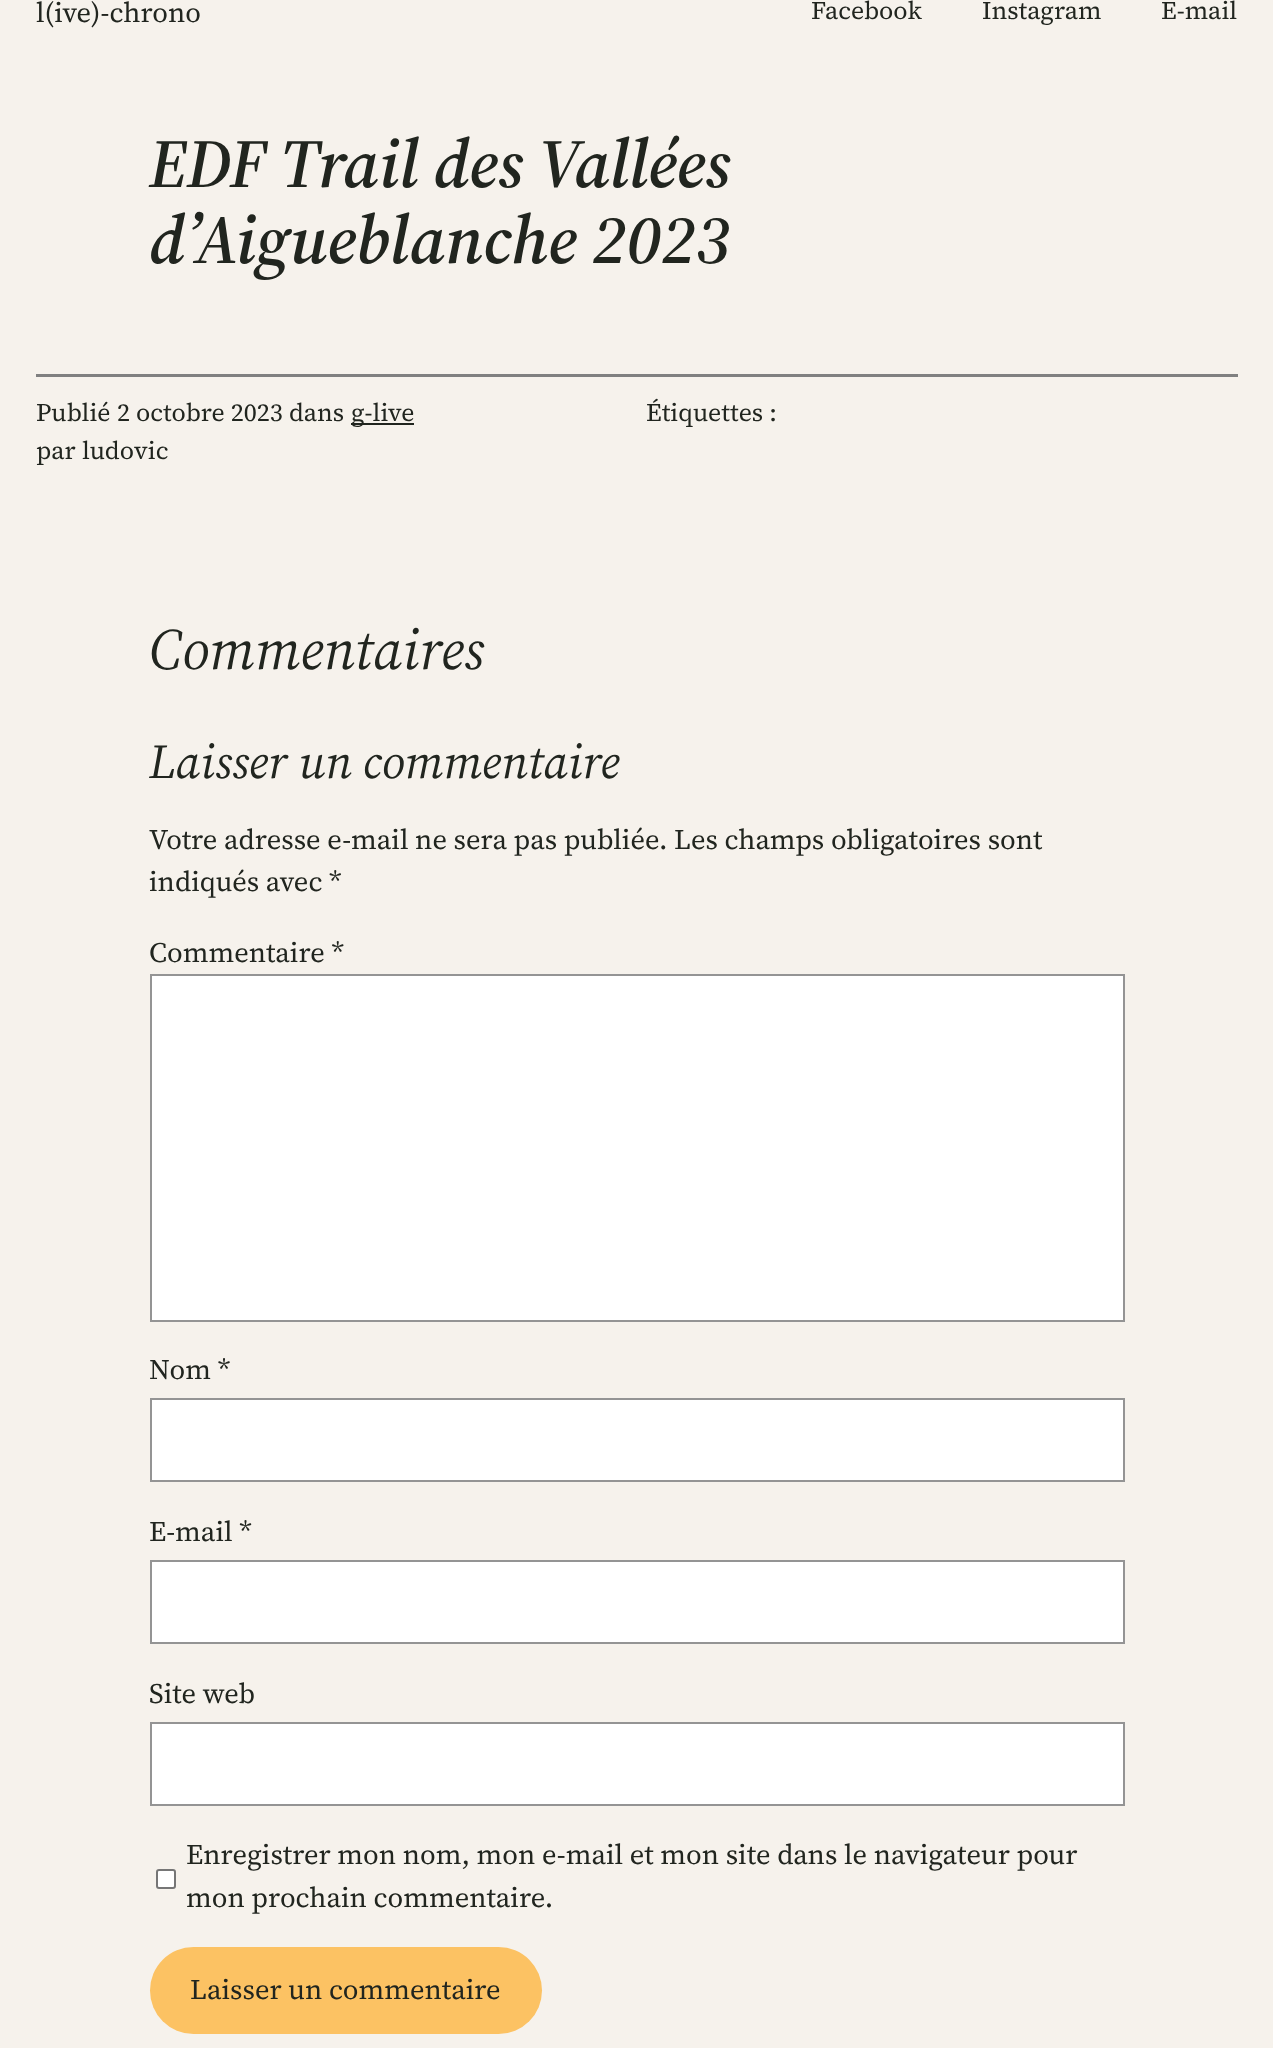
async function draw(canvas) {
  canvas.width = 1273
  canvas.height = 2048
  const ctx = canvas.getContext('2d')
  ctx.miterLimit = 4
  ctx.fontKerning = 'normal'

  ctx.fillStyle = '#f6f2ec'
  ctx.fillRect(0, 0, 1273, 2048)
  ctx.font = '28.25px "Source Serif 4"'
  ctx.fillStyle = '#21251f'
  ctx.fillText('l(ive)-chrono', 36, 22)
  ctx.font = '25.25px "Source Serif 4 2"'
  ctx.fillText('Facebook', 811, 19)
  ctx.fillText('Instagram', 982, 19)
  ctx.fillText('E-mail', 1161, 19)
  ctx.font = 'italic 600 69px "Source Serif 4"'
  ctx.fillText('EDF Trail des Vallées', 149, 187)
  ctx.fillText('d’Aigueblanche 2023', 149, 263)
  ctx.fillStyle = '#808080'
  ctx.fillRect(36, 374, 1202, 3)
  ctx.font = '25.25px "Source Serif 4 2"'
  ctx.fillStyle = '#21251f'
  ctx.fillText('Publié', 36, 421)
  ctx.fillText('2 octobre 2023', 117, 421)
  ctx.fillText('dans', 289, 421)
  ctx.fillRect(351, 423, 63, 2)
  ctx.fillText('g-live', 351, 421)
  ctx.fillText('par', 36, 459)
  ctx.fillText('ludovic', 82, 459)
  ctx.fillText('Étiquettes :', 646, 421)
  ctx.font = 'italic 58px "Source Serif 4"'
  ctx.fillText('Commentaires', 149, 669)
  ctx.font = 'italic 48.4px "Source Serif 4 2"'
  ctx.fillText('Laisser un commentaire', 149, 778)
  ctx.font = '28.25px "Source Serif 4"'
  ctx.fillText('Votre adresse e-mail ne sera pas publiée. Les champs obligatoires sont', 149, 849)
  ctx.fillText('indiqués avec *', 149, 891)
  ctx.fillText('Commentaire *', 149, 962)
  ctx.fillStyle = '#fff'
  ctx.beginPath()
  ctx.rect(151, 975, 973, 346)
  ctx.fill()
  ctx.strokeStyle = '#949494'
  ctx.lineWidth = 2
  ctx.stroke()
  ctx.fillStyle = '#21251f'
  ctx.fillText('Nom *', 149, 1379)
  ctx.fillStyle = '#fff'
  ctx.beginPath()
  ctx.rect(151, 1399, 973, 82)
  ctx.fill()
  ctx.stroke()
  ctx.fillStyle = '#21251f'
  ctx.fillText('E-mail *', 149, 1541)
  ctx.fillStyle = '#fff'
  ctx.beginPath()
  ctx.rect(151, 1561, 973, 82)
  ctx.fill()
  ctx.stroke()
  ctx.fillStyle = '#21251f'
  ctx.fillText('Site web', 149, 1703)
  ctx.fillStyle = '#fff'
  ctx.beginPath()
  ctx.rect(151, 1723, 973, 82)
  ctx.fill()
  ctx.stroke()
  ctx.beginPath()
  ctx.roundRect(157, 1870, 18, 18, 2)
  ctx.fill()
  ctx.strokeStyle = '#767676'
  ctx.stroke()
  ctx.fillStyle = '#21251f'
  ctx.fillText('Enregistrer mon nom, mon e-mail et mon site dans le navigateur pour', 186, 1864)
  ctx.fillText('mon prochain commentaire.', 186, 1907)
  ctx.fillStyle = '#fcc263'
  ctx.beginPath()
  ctx.roundRect(150, 1947, 392, 87, 43.5)
  ctx.fill()
  ctx.fillStyle = '#21251f'
  ctx.fillText('Laisser un commentaire', 190, 1999)
}

draw(document.querySelector('canvas'))
